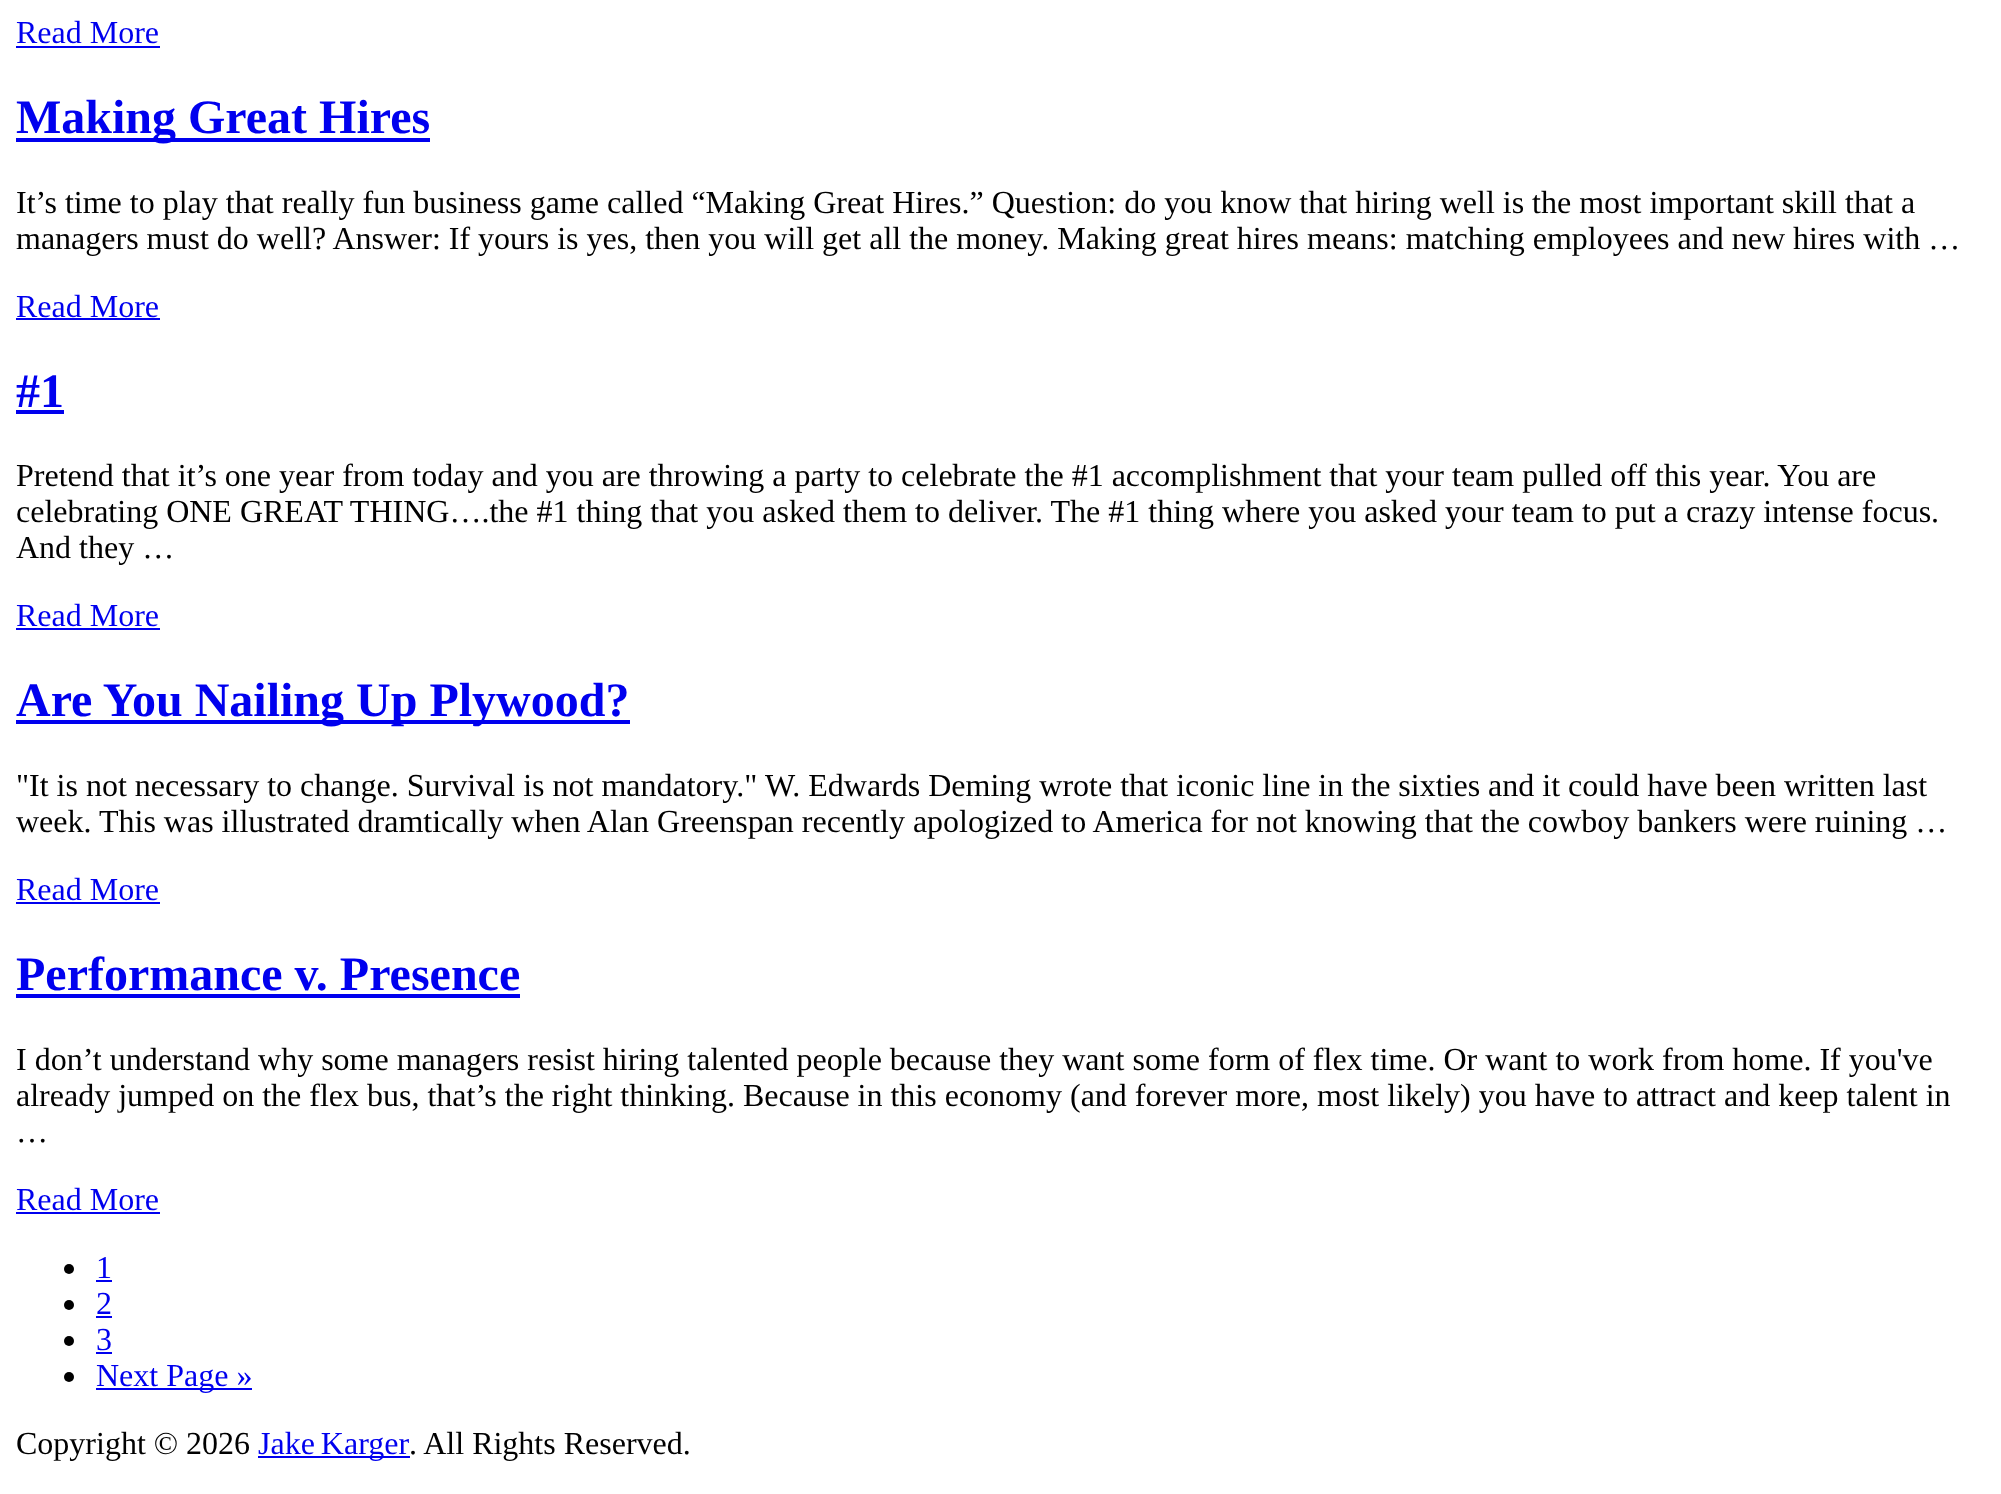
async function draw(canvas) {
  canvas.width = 2001
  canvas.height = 1494
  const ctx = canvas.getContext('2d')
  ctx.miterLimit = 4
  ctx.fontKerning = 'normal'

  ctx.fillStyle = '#fff'
  ctx.fillRect(0, 0, 2001, 1494)
  ctx.font = '32px Liberation Serif'
  ctx.fillStyle = '#00e'
  ctx.fillText('Read More', 16, 43)
  ctx.fillRect(16, 46, 144, 2)
  ctx.fillRect(16, 138, 414, 4)
  ctx.font = 'bold 48px Liberation Serif'
  ctx.fillText('Making Great Hires', 16, 133)
  ctx.font = '32px Liberation Serif'
  ctx.fillStyle = '#000'
  ctx.fillText('It’s time to play that really fun business game called “Making Great Hires.” Question: do you know that hiring well is the most important skill that a', 16, 213)
  ctx.fillText('managers must do well? Answer: If yours is yes, then you will get all the money. Making great hires means: matching employees and new hires with …', 16, 249)
  ctx.fillStyle = '#00e'
  ctx.fillText('Read More', 16, 317)
  ctx.fillRect(16, 318, 144, 2)
  ctx.font = 'bold 48px Liberation Serif'
  ctx.fillText('#1', 16, 407)
  ctx.fillRect(16, 410, 48, 4)
  ctx.font = '32px Liberation Serif'
  ctx.fillStyle = '#000'
  ctx.fillText('Pretend that it’s one year from today and you are throwing a party to celebrate the #1 accomplishment that your team pulled off this year. You are', 16, 486)
  ctx.fillText('celebrating ONE GREAT THING….the #1 thing that you asked them to deliver. The #1 thing where you asked your team to put a crazy intense focus.', 16, 522)
  ctx.fillText('And they …', 16, 558)
  ctx.fillStyle = '#00e'
  ctx.fillText('Read More', 16, 626)
  ctx.fillRect(16, 628, 144, 2)
  ctx.fillRect(16, 720, 614, 4)
  ctx.font = 'bold 48px Liberation Serif'
  ctx.fillText('Are You Nailing Up Plywood?', 16, 716)
  ctx.font = '32px Liberation Serif'
  ctx.fillStyle = '#000'
  ctx.fillText('"It is not necessary to change. Survival is not mandatory."', 16, 796)
  ctx.fillText('W. Edwards Deming wrote that iconic line in the sixties and it could have been written last', 765, 796)
  ctx.fillText('week. This was illustrated dramtically when Alan Greenspan recently apologized to America for not knowing that the cowboy bankers were ruining …', 16, 832)
  ctx.fillStyle = '#00e'
  ctx.fillText('Read More', 16, 900)
  ctx.fillRect(16, 902, 144, 2)
  ctx.font = 'bold 48px Liberation Serif'
  ctx.fillText('Performance v. Presence', 16, 990)
  ctx.fillRect(16, 994, 504, 4)
  ctx.font = '32px Liberation Serif'
  ctx.fillStyle = '#000'
  ctx.fillText('I don’t understand why some managers resist hiring talented people because they want some form of flex time. Or want to work from home. If you\'ve', 16, 1070)
  ctx.fillText('already jumped on the flex bus, that’s the right thinking. Because in this economy (and forever more, most likely) you have to attract and keep talent in', 16, 1106)
  ctx.fillText('…', 16, 1142)
  ctx.fillStyle = '#00e'
  ctx.fillText('Read More', 16, 1210)
  ctx.fillRect(16, 1212, 144, 2)
  ctx.fillStyle = '#000'
  ctx.beginPath()
  ctx.arc(69, 1269, 5, 0, 2 * Math.PI)
  ctx.fill()
  ctx.fillStyle = '#00e'
  ctx.fillText('1', 96, 1278)
  ctx.fillRect(96, 1280, 16, 2)
  ctx.fillStyle = '#000'
  ctx.beginPath()
  ctx.arc(69, 1305, 5, 0, 2 * Math.PI)
  ctx.fill()
  ctx.fillStyle = '#00e'
  ctx.fillText('2', 96, 1314)
  ctx.fillRect(96, 1316, 16, 2)
  ctx.fillStyle = '#000'
  ctx.beginPath()
  ctx.arc(69, 1341, 5, 0, 2 * Math.PI)
  ctx.fill()
  ctx.fillStyle = '#00e'
  ctx.fillText('3', 96, 1350)
  ctx.fillRect(96, 1352, 16, 2)
  ctx.fillStyle = '#000'
  ctx.beginPath()
  ctx.arc(69, 1377, 5, 0, 2 * Math.PI)
  ctx.fill()
  ctx.fillStyle = '#00e'
  ctx.fillRect(96, 1388, 156, 2)
  ctx.fillText('Next Page »', 96, 1386)
  ctx.fillStyle = '#000'
  ctx.fillText('Copyright © 2026', 16, 1454)
  ctx.fillStyle = '#00e'
  ctx.fillRect(258, 1456, 152, 2)
  ctx.wordSpacing = '-2px'
  ctx.fillText('Jake Karger', 258, 1454)
  ctx.wordSpacing = '0px'
  ctx.fillStyle = '#000'
  ctx.fillText('. All Rights Reserved.', 409, 1454)
}

draw(document.querySelector('canvas'))
